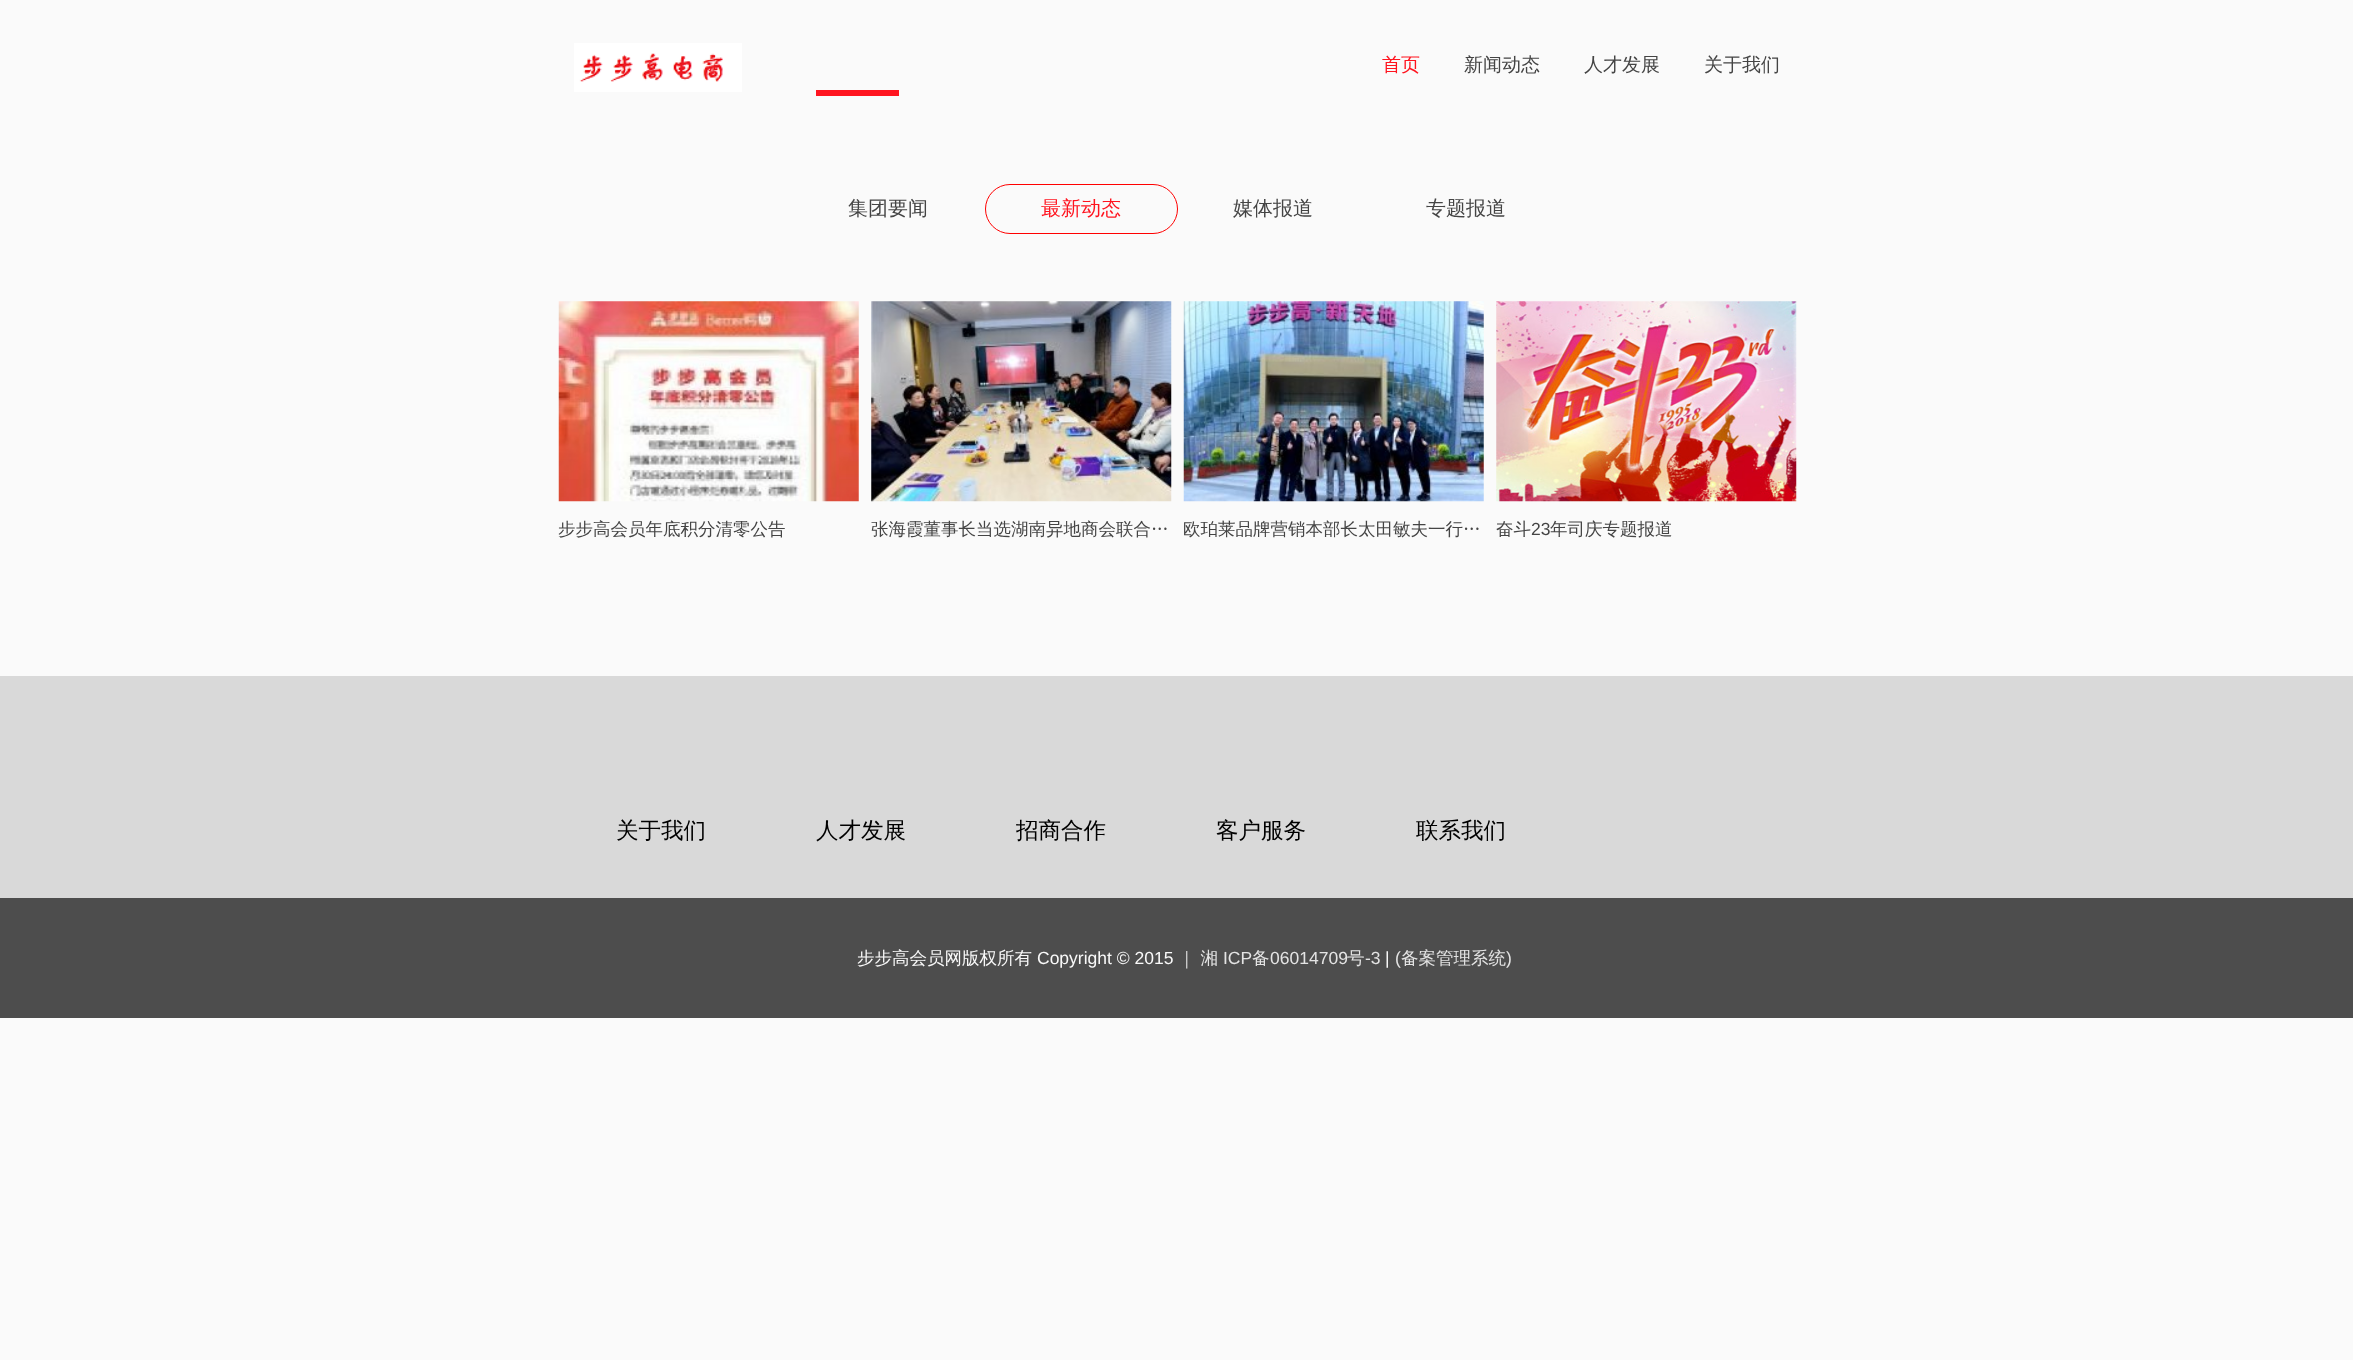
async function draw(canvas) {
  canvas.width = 2353
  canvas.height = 1360
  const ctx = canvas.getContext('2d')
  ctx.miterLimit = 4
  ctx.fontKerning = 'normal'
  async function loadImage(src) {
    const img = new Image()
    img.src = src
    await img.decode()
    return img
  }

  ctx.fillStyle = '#fafafa'
  ctx.fillRect(0, 0, 2353, 1360)
  ctx.drawImage(await loadImage('image0.png'), 574, 43, 168, 49)
  ctx.font = '500 19px WenQuanYi Zen Hei'
  ctx.fillStyle = '#ff141f'
  ctx.fillText('首页', 1382, 71)
  ctx.fillStyle = '#444'
  ctx.fillText('新闻动态', 1464, 71)
  ctx.fillText('人才发展', 1584, 71)
  ctx.fillText('关于我们', 1704, 71)
  ctx.fillStyle = '#ff1520'
  ctx.fillRect(816, 90, 83, 6)
  ctx.font = '500 20px WenQuanYi Zen Hei'
  ctx.fillStyle = '#444'
  ctx.fillText('集团要闻', 848, 215)
  ctx.beginPath()
  ctx.roundRect(985.5, 184.5, 192, 49, 24.5)
  ctx.strokeStyle = '#f00'
  ctx.stroke()
  ctx.fillStyle = '#ff141f'
  ctx.fillText('最新动态', 1041, 215)
  ctx.fillStyle = '#444'
  ctx.fillText('媒体报道', 1233, 215)
  ctx.fillText('专题报道', 1426, 215)
  ctx.drawImage(await loadImage('image1.png'), 558, 301, 301, 201)
  ctx.font = '500 17.5px WenQuanYi Zen Hei'
  ctx.fillText('步步高会员年底积分清零公告', 558, 535)
  ctx.drawImage(await loadImage('image2.png'), 871, 301, 301, 201)
  ctx.fillText('张海霞董事长当选湖南异地商会联合…', 871, 535)
  ctx.drawImage(await loadImage('image3.png'), 1183, 301, 301, 201)
  ctx.fillText('欧珀莱品牌营销本部长太田敏夫一行…', 1183, 535)
  ctx.drawImage(await loadImage('image4.png'), 1496, 301, 301, 201)
  ctx.fillText('奋斗', 1496, 535)
  ctx.font = '17.5px Liberation Sans'
  ctx.fillText('23', 1531, 535)
  ctx.font = '500 17.5px WenQuanYi Zen Hei'
  ctx.fillText('年司庆专题报道', 1550, 535)
  ctx.fillStyle = '#d9d9d9'
  ctx.fillRect(0, 676, 2353, 222)
  ctx.font = '500 22.5px WenQuanYi Zen Hei'
  ctx.fillStyle = '#000'
  ctx.fillText('关于我们', 616, 838)
  ctx.fillText('人才发展', 816, 838)
  ctx.fillText('招商合作', 1016, 838)
  ctx.fillText('客户服务', 1216, 838)
  ctx.fillText('联系我们', 1416, 838)
  ctx.fillStyle = '#4d4d4d'
  ctx.fillRect(0, 898, 2353, 120)
  ctx.font = '500 17.5px WenQuanYi Zen Hei'
  ctx.fillStyle = '#f9f9f9'
  ctx.fillText('步步高会员网版权所有', 857, 964)
  ctx.font = '17.5px Liberation Sans'
  ctx.fillText('Copyright © 2015', 1037, 964)
  ctx.font = '500 17.5px WenQuanYi Zen Hei'
  ctx.fillStyle = '#e4e4e4'
  ctx.fillText('｜ 湘', 1178, 964)
  ctx.font = '17.5px Liberation Sans'
  ctx.fillText('ICP', 1223, 964)
  ctx.font = '500 17.5px WenQuanYi Zen Hei'
  ctx.fillText('备', 1252, 964)
  ctx.font = '17.5px Liberation Sans'
  ctx.fillText('06014709', 1270, 964)
  ctx.font = '500 17.5px WenQuanYi Zen Hei'
  ctx.fillText('号', 1347, 964)
  ctx.font = '17.5px Liberation Sans'
  ctx.fillText('-3', 1365, 964)
  ctx.fillStyle = '#f9f9f9'
  ctx.fillText('|', 1385, 964)
  ctx.fillStyle = '#e4e4e4'
  ctx.fillText('(', 1395, 964)
  ctx.font = '500 17.5px WenQuanYi Zen Hei'
  ctx.fillText('备案管理系统', 1401, 964)
  ctx.font = '17.5px Liberation Sans'
  ctx.fillText(')', 1506, 964)
}

draw(document.querySelector('canvas'))
